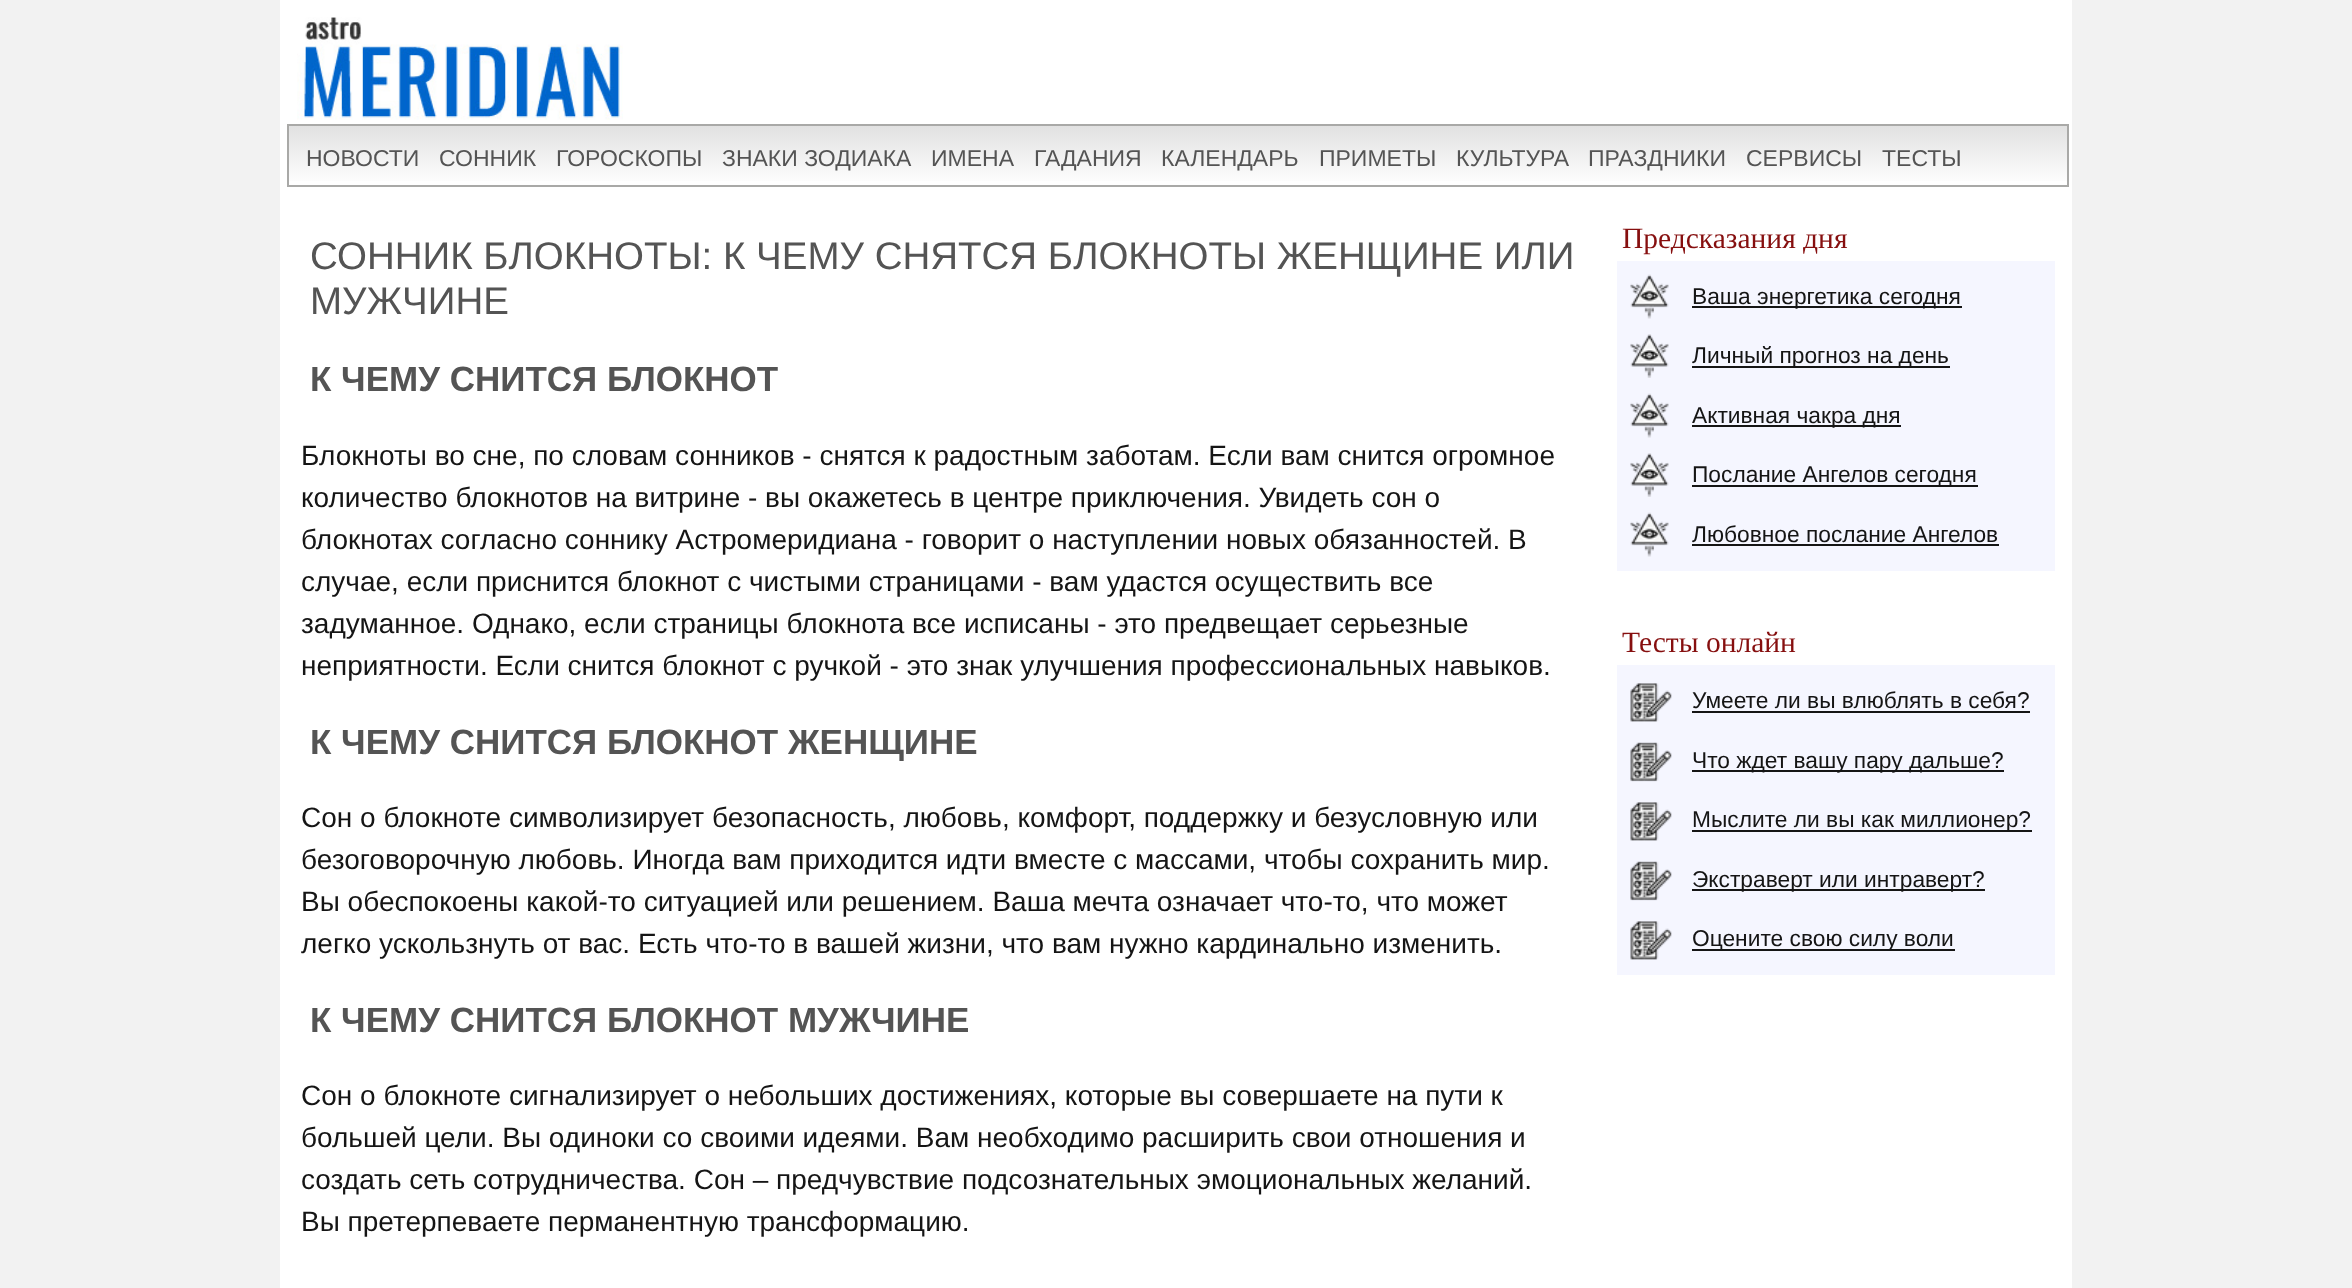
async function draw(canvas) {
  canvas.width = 2352
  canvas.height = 1288
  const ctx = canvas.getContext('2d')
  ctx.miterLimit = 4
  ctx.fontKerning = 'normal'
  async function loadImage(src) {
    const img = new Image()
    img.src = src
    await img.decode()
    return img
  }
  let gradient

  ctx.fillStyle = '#f2f2f2'
  ctx.fillRect(0, 0, 2352, 1288)
  ctx.fillStyle = '#fff'
  ctx.fillRect(280, 0, 1792, 1288)
  ctx.drawImage(await loadImage('image0.png'), 297, 17, 326, 103)
  gradient = ctx.createLinearGradient(1178, 126, 1178, 186)
  gradient.addColorStop(0, '#e1e1e1')
  gradient.addColorStop(1, '#fff')
  ctx.fillStyle = gradient
  ctx.fillRect(289, 126, 1778, 55)
  ctx.strokeStyle = '#a9a9a7'
  ctx.lineWidth = 2
  ctx.strokeRect(288, 125, 1780, 61)
  ctx.font = '23px Liberation Sans'
  ctx.fillStyle = '#545454'
  ctx.fillText('НОВОСТИ', 306, 166)
  ctx.fillText('СОННИК', 439, 166)
  ctx.fillText('ГОРОСКОПЫ', 556, 166)
  ctx.fillText('ЗНАКИ ЗОДИАКА', 722, 166)
  ctx.fillText('ИМЕНА', 931, 166)
  ctx.fillText('ГАДАНИЯ', 1034, 166)
  ctx.fillText('КАЛЕНДАРЬ', 1161, 166)
  ctx.fillText('ПРИМЕТЫ', 1319, 166)
  ctx.fillText('КУЛЬТУРА', 1456, 166)
  ctx.fillText('ПРАЗДНИКИ', 1588, 166)
  ctx.fillText('СЕРВИСЫ', 1746, 166)
  ctx.fillText('ТЕСТЫ', 1882, 166)
  ctx.font = '38.5px Liberation Sans'
  ctx.fillText('СОННИК БЛОКНОТЫ: К ЧЕМУ СНЯТСЯ БЛОКНОТЫ ЖЕНЩИНЕ ИЛИ', 310, 269)
  ctx.fillText('МУЖЧИНЕ', 310, 314)
  ctx.font = 'bold 35px Liberation Sans'
  ctx.fillText('К ЧЕМУ СНИТСЯ БЛОКНОТ', 310, 391)
  ctx.font = '28px Liberation Sans'
  ctx.fillStyle = '#151515'
  ctx.fillText('Блокноты во сне, по словам сонников - снятся к радостным заботам. Если вам снится огромное', 301, 465)
  ctx.fillText('количество блокнотов на витрине - вы окажетесь в центре приключения. Увидеть сон о', 301, 507)
  ctx.fillText('блокнотах согласно соннику Астромеридиана - говорит о наступлении новых обязанностей. В', 301, 549)
  ctx.fillText('случае, если приснится блокнот с чистыми страницами - вам удастся осуществить все', 301, 591)
  ctx.fillText('задуманное. Однако, если страницы блокнота все исписаны - это предвещает серьезные', 301, 633)
  ctx.fillText('неприятности. Если снится блокнот с ручкой - это знак улучшения профессиональных навыков.', 301, 675)
  ctx.font = 'bold 35px Liberation Sans'
  ctx.fillStyle = '#545454'
  ctx.fillText('К ЧЕМУ СНИТСЯ БЛОКНОТ ЖЕНЩИНЕ', 310, 754)
  ctx.font = '28px Liberation Sans'
  ctx.fillStyle = '#151515'
  ctx.fillText('Сон о блокноте символизирует безопасность, любовь, комфорт, поддержку и безусловную или', 301, 827)
  ctx.fillText('безоговорочную любовь. Иногда вам приходится идти вместе с массами, чтобы сохранить мир.', 301, 869)
  ctx.fillText('Вы обеспокоены какой-то ситуацией или решением. Ваша мечта означает что-то, что может', 301, 911)
  ctx.fillText('легко ускользнуть от вас. Есть что-то в вашей жизни, что вам нужно кардинально изменить.', 301, 953)
  ctx.font = 'bold 35px Liberation Sans'
  ctx.fillStyle = '#545454'
  ctx.fillText('К ЧЕМУ СНИТСЯ БЛОКНОТ МУЖЧИНЕ', 310, 1032)
  ctx.font = '28px Liberation Sans'
  ctx.fillStyle = '#151515'
  ctx.fillText('Сон о блокноте сигнализирует о небольших достижениях, которые вы совершаете на пути к', 301, 1105)
  ctx.fillText('большей цели. Вы одиноки со своими идеями. Вам необходимо расширить свои отношения и', 301, 1147)
  ctx.fillText('создать сеть сотрудничества. Сон – предчувствие подсознательных эмоциональных желаний.', 301, 1189)
  ctx.fillText('Вы претерпеваете перманентную трансформацию.', 301, 1231)
  ctx.font = '29.5px Liberation Serif'
  ctx.fillStyle = '#860f0f'
  ctx.fillText('Предсказания дня', 1622, 248)
  ctx.fillStyle = '#f5f6ff'
  ctx.fillRect(1617, 261, 438, 310)
  ctx.drawImage(await loadImage('image1.png'), 1630, 274, 39, 45)
  ctx.fillStyle = '#151515'
  ctx.fillRect(1692, 306, 270, 2)
  ctx.font = '22.75px Liberation Sans'
  ctx.fillText('Ваша энергетика сегодня', 1692, 304)
  ctx.drawImage(await loadImage('image2.png'), 1630, 334, 39, 44)
  ctx.fillRect(1692, 366, 258, 2)
  ctx.fillText('Личный прогноз на день', 1692, 363)
  ctx.drawImage(await loadImage('image1.png'), 1630, 393, 39, 45)
  ctx.fillRect(1692, 425, 209, 2)
  ctx.fillText('Активная чакра дня', 1692, 423)
  ctx.drawImage(await loadImage('image2.png'), 1630, 453, 39, 44)
  ctx.fillRect(1692, 485, 286, 2)
  ctx.fillText('Послание Ангелов сегодня', 1692, 482)
  ctx.drawImage(await loadImage('image1.png'), 1630, 512, 39, 45)
  ctx.fillText('Любовное послание Ангелов', 1692, 542)
  ctx.fillRect(1692, 544, 307, 2)
  ctx.font = '29.5px Liberation Serif'
  ctx.fillStyle = '#860f0f'
  ctx.fillText('Тесты онлайн', 1622, 652)
  ctx.fillStyle = '#f5f6ff'
  ctx.fillRect(1617, 665, 438, 310)
  ctx.drawImage(await loadImage('image3.png'), 1630, 683, 42, 39)
  ctx.font = '22.75px Liberation Sans'
  ctx.fillStyle = '#151515'
  ctx.fillText('Умеете ли вы влюблять в себя?', 1692, 708)
  ctx.fillRect(1692, 711, 338, 2)
  ctx.drawImage(await loadImage('image4.png'), 1630, 742, 42, 40)
  ctx.fillRect(1692, 770, 312, 2)
  ctx.fillText('Что ждет вашу пару дальше?', 1692, 768)
  ctx.drawImage(await loadImage('image5.png'), 1630, 802, 42, 39)
  ctx.fillRect(1692, 830, 340, 2)
  ctx.fillText('Мыслите ли вы как миллионер?', 1692, 827)
  ctx.drawImage(await loadImage('image4.png'), 1630, 861, 42, 40)
  ctx.fillRect(1692, 889, 293, 2)
  ctx.fillText('Экстраверт или интраверт?', 1692, 887)
  ctx.drawImage(await loadImage('image5.png'), 1630, 921, 42, 39)
  ctx.fillRect(1692, 949, 263, 2)
  ctx.fillText('Оцените свою силу воли', 1692, 946)
}

draw(document.querySelector('canvas'))
